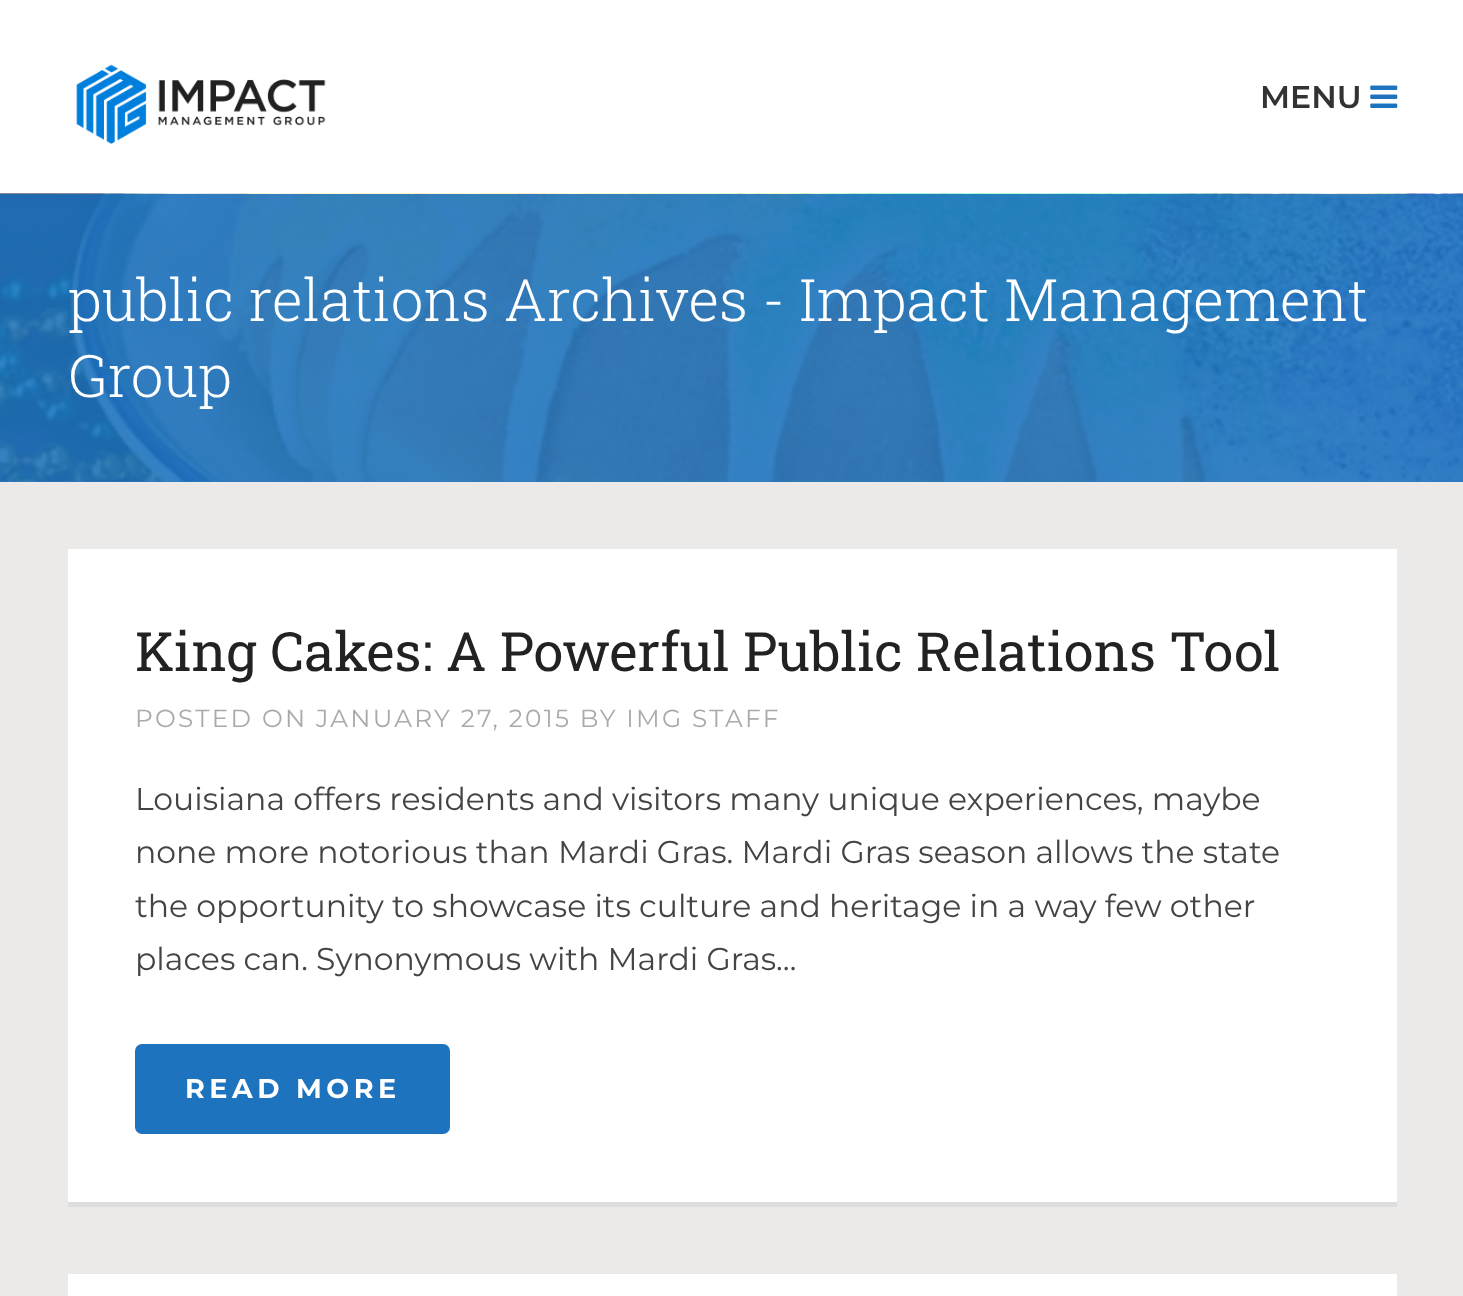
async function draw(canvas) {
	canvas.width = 1463;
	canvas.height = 1296;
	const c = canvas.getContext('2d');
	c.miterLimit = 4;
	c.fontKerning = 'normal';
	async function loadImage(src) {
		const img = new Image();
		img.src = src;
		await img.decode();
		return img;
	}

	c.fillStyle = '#fff';
	c.fillRect(0, 0, 1463, 1296);
	c.drawImage(await loadImage('img1.png'), 76, 64, 250, 80);
	c.font = '600 31.5px Montserrat';
	c.fillStyle = '#333';
	c.fillText('MENU', 1260, 108);
	c.drawImage(await loadImage('img2.png'), 1370, 85, 28, 23);
	c.fillStyle = '#ebeae9';
	c.fillRect(0, 482, 1463, 814);
	c.fillStyle = '#337fc2';
	c.fillRect(0, 481, 1463, 1);
	c.drawImage(await loadImage('img3.png'), 0, 193, 1463, 289);
	c.font = '300 58.5px Roboto Slab';
	c.fillStyle = '#fff';
	c.fillText('public relations Archives - Impact Management', 68, 321);
	c.fillText('Group', 68, 397);
	c.fillRect(68, 549, 1329, 653);
	c.fillStyle = '#ddd';
	c.fillRect(68, 1202, 1329, 5);
	c.font = '54px Roboto Slab';
	c.fillStyle = '#222';
	c.fillText('King Cakes: A Powerful Public Relations Tool', 135, 671);
	c.letterSpacing = '2.25px';
	c.font = '24.75px Montserrat';
	c.fillStyle = '#aaa';
	c.fillText('POSTED ON JANUARY 27, 2015 BY IMG STAFF', 135, 727);
	c.letterSpacing = '0px';
	c.font = '31.5px Montserrat';
	c.fillStyle = '#444';
	for (const [text, x, y] of [
		['Louisiana offers residents and visitors many unique experiences, maybe', 135, 810],
		['none more notorious than Mardi Gras. Mardi Gras season allows the state', 135, 863],
		['the opportunity to showcase its culture and heritage in a way few other', 135, 917],
		['places can. Synonymous with Mardi Gras…', 135, 970],
	]) {
		c.fillText(text, x, y);
	}
	c.fillStyle = '#1e73be';
	c.beginPath();
	c.roundRect(135, 1044, 315, 90, 7);
	c.fill();
	c.letterSpacing = '4.5px';
	c.font = 'bold 27px Montserrat';
	c.fillStyle = '#fff';
	c.fillText('READ MORE', 185, 1098);
	c.fillRect(68, 1274, 1329, 22);
}

draw(document.querySelector('canvas'));
